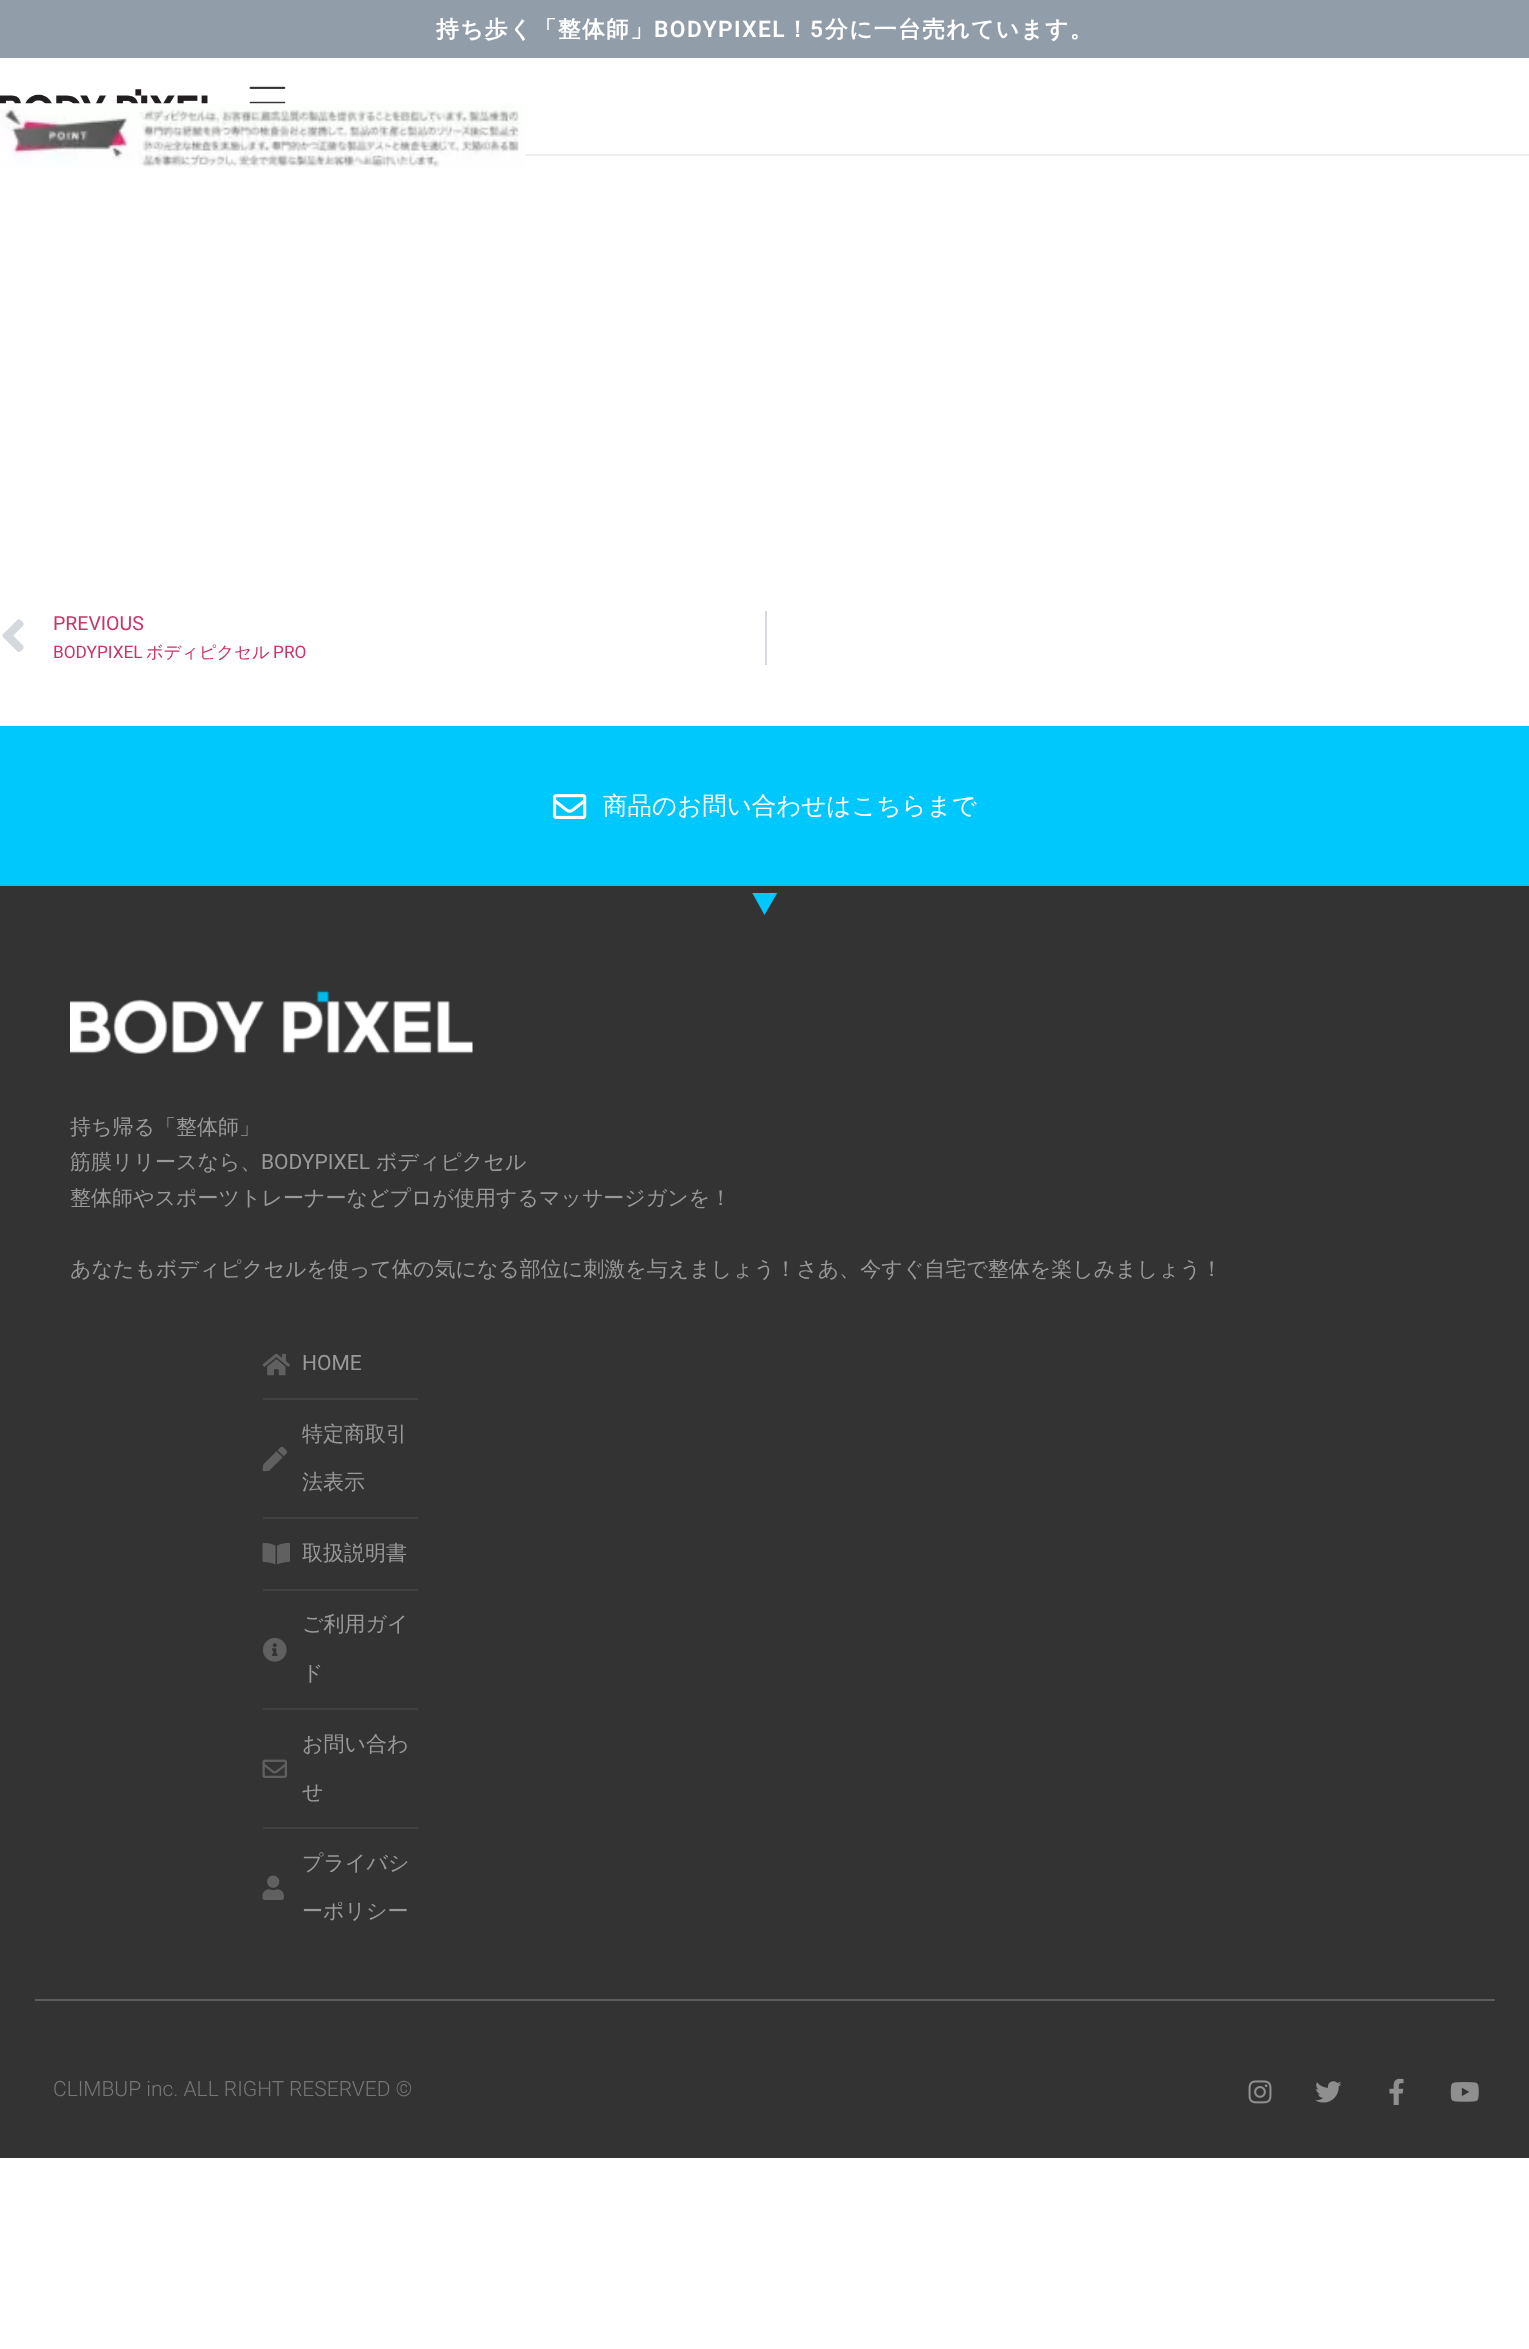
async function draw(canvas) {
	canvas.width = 1529;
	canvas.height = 2349;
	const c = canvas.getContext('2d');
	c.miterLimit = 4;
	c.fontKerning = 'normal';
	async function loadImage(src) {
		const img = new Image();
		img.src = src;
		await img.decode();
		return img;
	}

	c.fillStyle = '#fff';
	c.fillRect(0, 0, 1529, 2349);
	c.fillStyle = '#919da9';
	c.fillRect(0, 0, 1529, 58);
	c.letterSpacing = '1.4px';
	c.font = 'bold 22.75px WenQuanYi Zen Hei';
	c.fillStyle = '#fff';
	c.fillText('持ち歩く「整体師」', 436, 37);
	c.font = '600 22.75px Roboto';
	c.fillText('BODYPIXEL', 654, 37);
	c.font = 'bold 22.75px WenQuanYi Zen Hei';
	c.fillText('！', 786, 37);
	c.font = '600 22.75px Roboto';
	c.fillText('5', 810, 37);
	c.font = 'bold 22.75px WenQuanYi Zen Hei';
	c.fillText('分に一台売れています。', 825, 37);
	c.fillStyle = '#eee';
	c.fillRect(525, 154, 1004, 2);
	c.drawImage(await loadImage('img1.png'), 0, 89, 208, 15);
	c.drawImage(await loadImage('img2.png'), 249, 86, 37, 18);
	c.drawImage(await loadImage('img3.png'), 0, 103, 525, 65);
	c.drawImage(await loadImage('img4.png'), 2, 619, 22, 33);
	c.letterSpacing = '0px';
	c.font = '19.5px Roboto';
	c.fillStyle = '#c36';
	c.fillText('PREVIOUS', 53, 630);
	c.font = '17.25px Roboto';
	c.fillText('BODYPIXEL', 53, 658);
	c.font = '500 17.25px WenQuanYi Zen Hei';
	c.fillText('ボディピクセル', 146, 658);
	c.font = '17.25px Roboto';
	c.fillText('PRO', 273, 658);
	c.fillStyle = '#d5d8dc';
	c.fillRect(765, 611, 2, 54);
	c.fillStyle = '#00c7fc';
	c.fillRect(0, 726, 1529, 160);
	c.drawImage(await loadImage('img5.png'), 553, 794, 34, 25);
	c.font = '500 24.5px WenQuanYi Zen Hei';
	c.fillStyle = '#fff';
	c.fillText('商品のお問い合わせはこちらまで', 603, 814);
	c.fillStyle = '#333';
	c.fillRect(0, 886, 1529, 1272);
	c.save();
	c.beginPath();
	c.rect(326, 893, 878, 22);
	c.clip();
	c.fillStyle = '#00c7fc';
	c.beginPath();
	c.moveTo(764.5, 915);
	c.lineTo(752, 892.5);
	c.lineTo(777.5, 892.5);
	c.closePath();
	c.fill();
	c.restore();
	c.drawImage(await loadImage('img6.png'), 70, 990, 403, 64);
	c.font = '500 21px WenQuanYi Zen Hei';
	c.fillStyle = '#999';
	c.fillText('持ち帰る「整体師」', 70, 1134);
	c.fillText('筋膜リリースなら、', 70, 1169);
	c.font = '21px Roboto';
	c.fillText('BODYPIXEL', 261, 1169);
	c.font = '500 21px WenQuanYi Zen Hei';
	for (const [text, x, y] of [
		['ボディピクセル', 376, 1169],
		['整体師やスポーツトレーナーなどプロが使用するマッサージガンを！', 70, 1205],
		['あなたもボディピクセルを使って体の気になる部位に刺激を与えましょう！さあ、今すぐ自宅で整体を楽しみましょう！', 70, 1276],
	]) {
		c.fillText(text, x, y);
	}
	c.drawImage(await loadImage('img7.png'), 262, 1353, 28, 23);
	c.font = '21px Roboto';
	c.fillText('HOME', 302, 1370);
	c.fillStyle = '#414141';
	c.fillRect(263, 1398, 155, 2);
	c.drawImage(await loadImage('img8.png'), 262, 1446, 25, 26);
	c.font = '500 21px WenQuanYi Zen Hei';
	c.fillStyle = '#999';
	c.fillText('特定商取引', 302, 1441);
	c.fillText('法表示', 302, 1489);
	c.fillStyle = '#414141';
	c.fillRect(263, 1517, 155, 2);
	c.drawImage(await loadImage('img9.png'), 262, 1542, 28, 23);
	c.fillStyle = '#999';
	c.fillText('取扱説明書', 302, 1560);
	c.fillStyle = '#414141';
	c.fillRect(263, 1589, 155, 2);
	c.drawImage(await loadImage('img10.png'), 263, 1638, 24, 24);
	c.fillStyle = '#999';
	c.fillText('ご利用ガイ', 302, 1631);
	c.fillText('ド', 302, 1680);
	c.fillStyle = '#414141';
	c.fillRect(263, 1708, 155, 2);
	c.drawImage(await loadImage('img11.png'), 262, 1759, 25, 19);
	c.fillStyle = '#999';
	c.fillText('お問い合わ', 302, 1751);
	c.fillText('せ', 302, 1799);
	c.fillStyle = '#414141';
	c.fillRect(263, 1827, 155, 2);
	c.drawImage(await loadImage('img12.png'), 262, 1875, 22, 25);
	c.fillStyle = '#999';
	c.fillText('プライバシ', 302, 1870);
	c.fillText('ーポリシー', 302, 1918);
	c.fillStyle = '#5e5e5e';
	c.fillRect(35, 1999, 1460, 2);
	c.font = '300 21px Roboto';
	c.fillStyle = '#777';
	c.fillText('CLIMBUP inc. ALL RIGHT RESERVED ©', 53, 2096);
	c.drawImage(await loadImage('img13.png'), 1248, 2080, 24, 24);
	c.drawImage(await loadImage('img14.png'), 1315, 2081, 26, 22);
	c.drawImage(await loadImage('img15.png'), 1389, 2078, 15, 27);
	c.drawImage(await loadImage('img16.png'), 1450, 2082, 29, 20);
}

draw(document.querySelector('canvas'));
